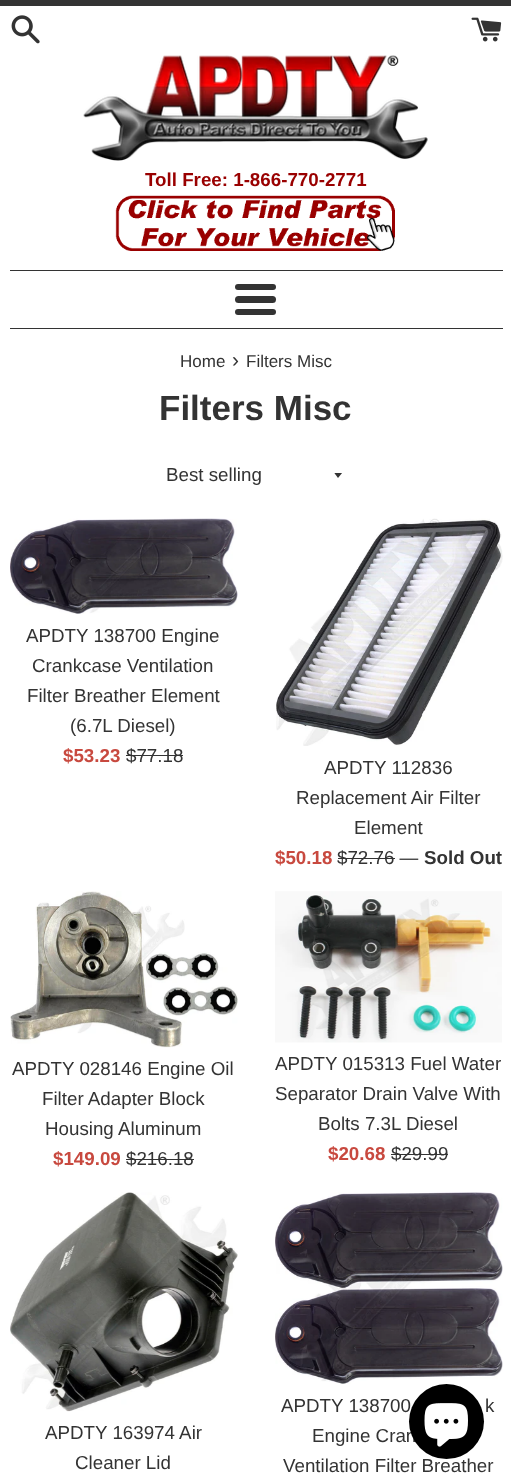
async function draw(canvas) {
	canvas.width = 511;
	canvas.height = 1484;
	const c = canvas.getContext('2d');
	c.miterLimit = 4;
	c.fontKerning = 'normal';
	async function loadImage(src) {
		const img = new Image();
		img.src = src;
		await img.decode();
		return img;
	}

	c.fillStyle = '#fff';
	c.fillRect(0, 0, 511, 1484);
	c.fillStyle = '#333';
	c.fillRect(0, 0, 511, 6);
	c.drawImage(await loadImage('img1.png'), 11, 15, 29, 29);
	c.drawImage(await loadImage('img2.png'), 471, 17, 31, 25);
	c.drawImage(await loadImage('img3.png'), 83, 55, 345, 106);
	c.font = 'bold 18.75px Liberation Sans';
	c.fillStyle = '#900';
	c.fillText('Toll Free: 1-866-770-2771', 145, 186);
	c.drawImage(await loadImage('img4.png'), 115, 195, 280, 56);
	c.fillStyle = '#333';
	c.fillRect(10, 270, 493, 1);
	c.beginPath();
	c.roundRect(235, 284, 41, 6, 3);
	c.fill();
	c.beginPath();
	c.roundRect(235, 296, 41, 7, 3.5);
	c.fill();
	c.beginPath();
	c.roundRect(235, 309, 41, 6, 3);
	c.fill();
	c.fillRect(10, 328, 493, 1);
	c.font = '17px Liberation Sans';
	c.fillText('Home', 180, 367);
	c.font = '21px Liberation Sans';
	c.fillText('›', 232, 367);
	c.font = '17px Liberation Sans';
	c.fillText('Filters Misc', 246, 367);
	c.font = 'bold 35px Liberation Sans';
	c.fillText('Filters Misc', 159, 420);
	c.save();
	c.beginPath();
	c.rect(334, 473, 10, 6);
	c.clip();
	c.beginPath();
	c.moveTo(334, 472.5);
	c.lineTo(338, 478);
	c.lineTo(342.5, 472.5);
	c.closePath();
	c.fill();
	c.restore();
	c.font = '18.75px Liberation Sans';
	c.fillText('Best selling', 166, 481);
	c.drawImage(await loadImage('img5.png'), 10, 518, 228, 96);
	for (const [text, x, y] of [
		['APDTY 138700 Engine', 26, 642],
		['Crankcase Ventilation', 32, 672],
		['Filter Breather Element', 27, 702],
		['(6.7L Diesel)', 70, 732],
	]) {
		c.fillText(text, x, y);
	}
	c.font = 'bold 18.75px Liberation Sans';
	c.fillStyle = '#c8493f';
	c.fillText('$53.23', 63, 762);
	c.font = '18.75px Liberation Sans';
	c.fillStyle = '#333';
	c.fillText('$77.18', 126, 762);
	c.fillRect(126, 755, 57, 1);
	c.drawImage(await loadImage('img6.png'), 276, 518, 227, 228);
	for (const [text, x, y] of [
		['APDTY 112836', 324, 774],
		['Replacement Air Filter', 296, 804],
		['Element', 354, 834],
	]) {
		c.fillText(text, x, y);
	}
	c.font = 'bold 18.75px Liberation Sans';
	c.fillStyle = '#c8493f';
	c.fillText('$50.18', 275, 864);
	c.font = '18.75px Liberation Sans';
	c.fillStyle = '#333';
	c.fillText('$72.76 —', 337, 864);
	c.fillRect(338, 858, 57, 1);
	c.font = 'bold 18.75px Liberation Sans';
	c.fillText('Sold Out', 424, 864);
	c.drawImage(await loadImage('img7.png'), 10, 891, 228, 157);
	c.font = '18.75px Liberation Sans';
	for (const [text, x, y] of [
		['APDTY 028146 Engine Oil', 12, 1075],
		['Filter Adapter Block', 42, 1105],
		['Housing Aluminum', 45, 1135],
	]) {
		c.fillText(text, x, y);
	}
	c.font = 'bold 18.75px Liberation Sans';
	c.fillStyle = '#c8493f';
	c.fillText('$149.09', 53, 1165);
	c.font = '18.75px Liberation Sans';
	c.fillStyle = '#333';
	c.fillText('$216.18', 126, 1165);
	c.fillRect(126, 1159, 68, 1);
	c.drawImage(await loadImage('img8.png'), 275, 891, 227, 152);
	for (const [text, x, y] of [
		['APDTY 015313 Fuel Water', 275, 1070],
		['Separator Drain Valve With', 275, 1100],
		['Bolts 7.3L Diesel', 318, 1130],
	]) {
		c.fillText(text, x, y);
	}
	c.font = 'bold 18.75px Liberation Sans';
	c.fillStyle = '#c8493f';
	c.fillText('$20.68', 328, 1160);
	c.font = '18.75px Liberation Sans';
	c.fillStyle = '#333';
	c.fillText('$29.99', 391, 1160);
	c.fillRect(391, 1154, 57, 1);
	c.drawImage(await loadImage('img9.png'), 10, 1192, 228, 220);
	c.fillText('APDTY 163974 Air', 45, 1439);
	c.fillText('Cleaner Lid', 75, 1469);
	c.drawImage(await loadImage('img10.png'), 275, 1192, 228, 192);
	for (const [text, x, y] of [
		['APDTY 138700', 281, 1412],
		['k', 485, 1412],
		['Engine Cran', 312, 1442],
		['Ventilation Filter Breather', 283, 1472],
	]) {
		c.fillText(text, x, y);
	}
	c.fillStyle = '#000';
	c.beginPath();
	c.arc(446.5, 1421.5, 37.5, 0, 2 * Math.PI);
	c.fill();
	c.drawImage(await loadImage('img11.png'), 424, 1403, 44, 44);
}

draw(document.querySelector('canvas'));
